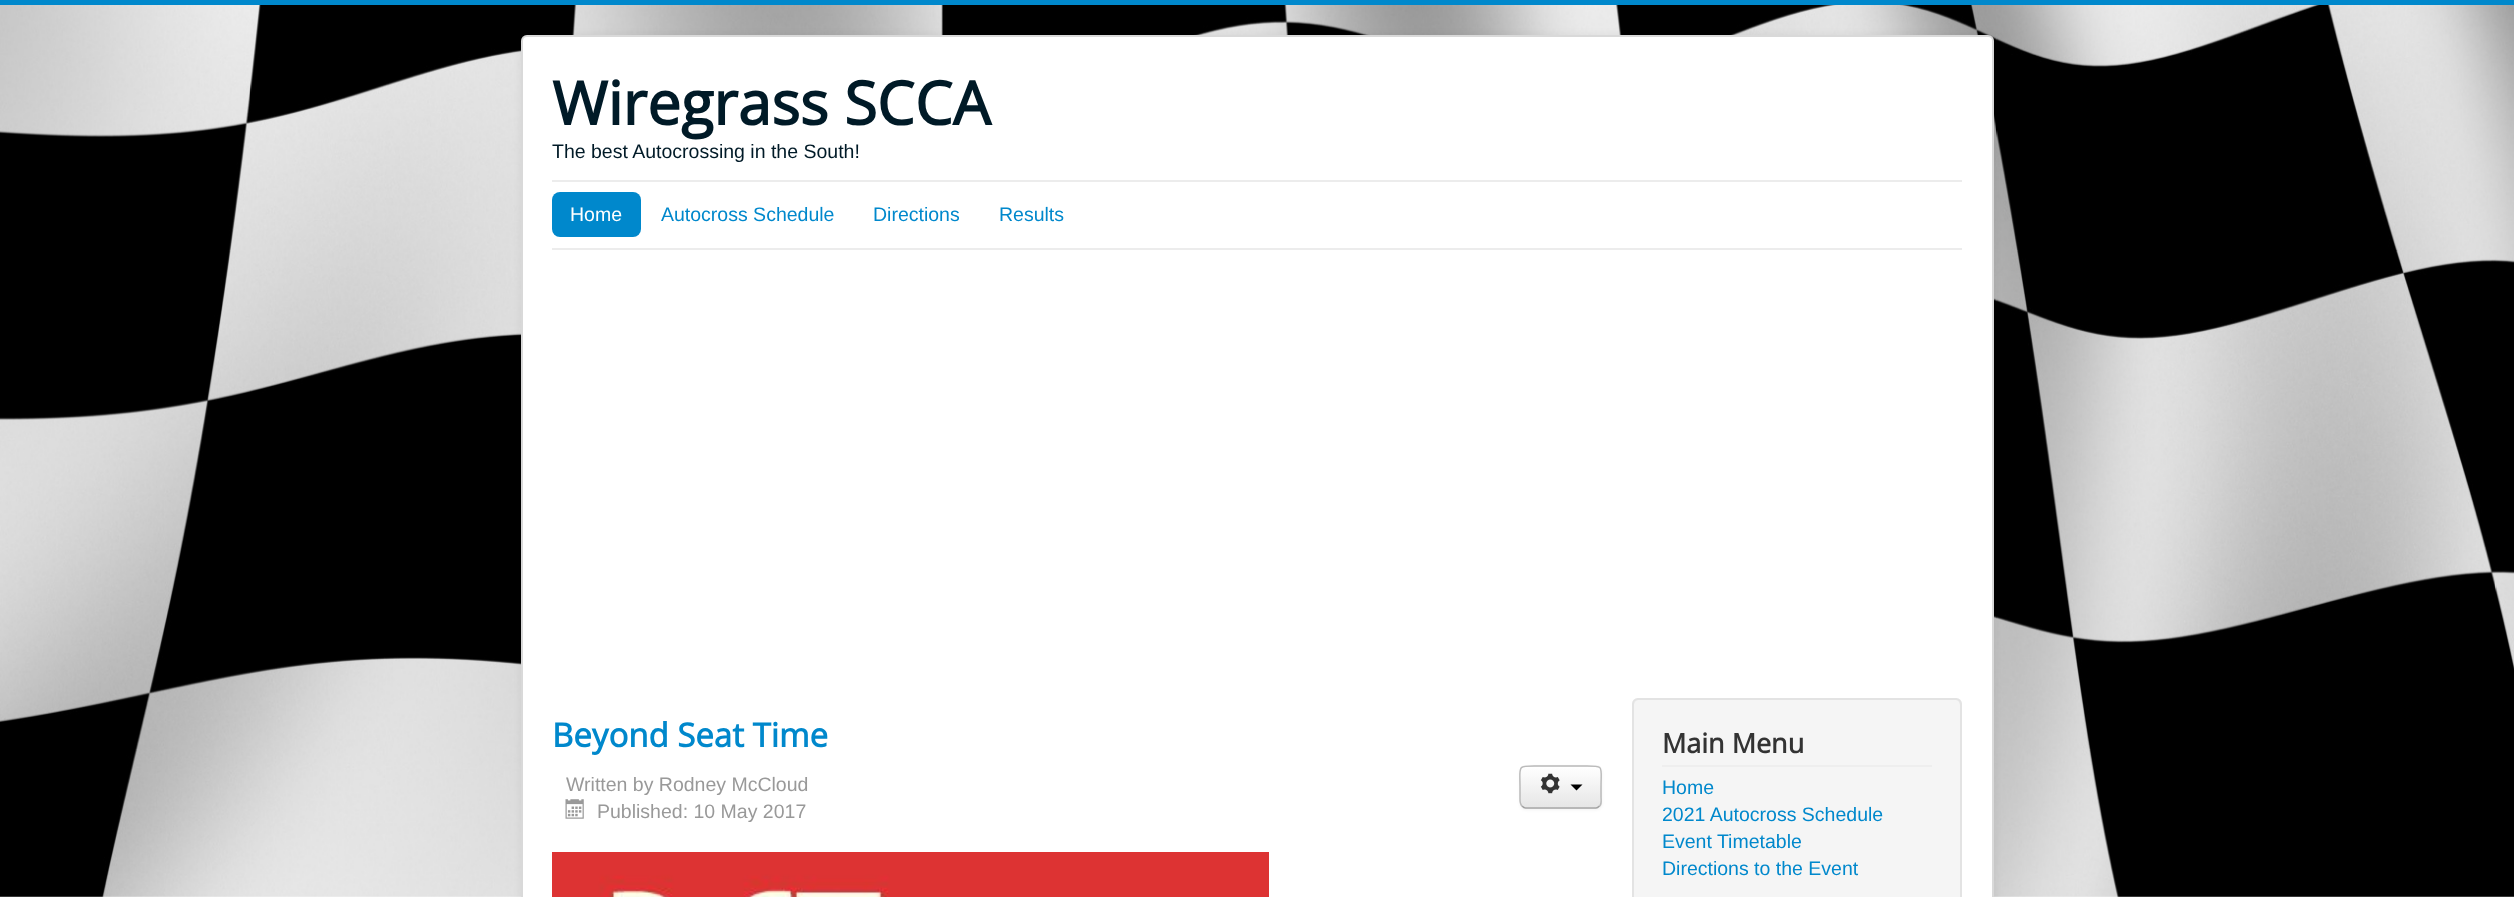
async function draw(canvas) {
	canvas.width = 2514;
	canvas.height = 897;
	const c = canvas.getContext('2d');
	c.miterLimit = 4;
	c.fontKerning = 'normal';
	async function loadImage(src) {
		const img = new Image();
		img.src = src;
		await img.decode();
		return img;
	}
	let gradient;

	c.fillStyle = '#fff';
	c.fillRect(0, 0, 2514, 897);
	c.drawImage(await loadImage('img1.png'), 0, 5, 2514, 892);
	c.fillStyle = '#08c';
	c.fillRect(0, 0, 2514, 5);
	c.fillStyle = '#0000000d';
	c.filter = 'blur(4.5px)';
	c.beginPath();
	c.roundRect(521, 35, 1473, 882, 6);
	c.fill();
	c.filter = 'none';
	c.fillStyle = '#fff';
	c.beginPath();
	c.roundRect(521, 35, 1473, 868, 6);
	c.fill();
	c.beginPath();
	c.roundRect(522, 36, 1471, 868, 5);
	c.strokeStyle = '#00000026';
	c.lineWidth = 2;
	c.stroke();
	c.font = 'bold 60px Open Sans';
	c.fillStyle = '#001a27';
	c.fillText('Wiregrass SCCA', 552, 125);
	c.font = '19.5px Liberation Sans';
	c.fillText('The best Autocrossing in the South!', 552, 158);
	c.fillStyle = '#ececec';
	c.fillRect(552, 180, 1410, 2);
	c.fillRect(552, 248, 1410, 2);
	c.fillStyle = '#08c';
	c.beginPath();
	c.roundRect(552, 192, 89, 45, 8);
	c.fill();
	c.fillStyle = '#fff';
	c.fillText('Home', 570, 221);
	c.fillStyle = '#08c';
	for (const [text, x, y] of [
		['Autocross Schedule', 661, 221],
		['Directions', 873, 221],
		['Results', 999, 221],
	]) {
		c.fillText(text, x, y);
	}
	c.font = 'bold 33px Open Sans';
	c.fillText('Beyond Seat Time', 552, 747);
	c.font = '19.5px Liberation Sans';
	c.fillStyle = '#999';
	c.fillText('Written by Rodney McCloud', 566, 791);
	c.drawImage(await loadImage('img2.png'), 565, 799, 19, 20);
	c.fillText('Published: 10 May 2017', 597, 818);
	c.fillStyle = '#0000000d';
	c.filter = 'blur(1.5px)';
	c.beginPath();
	c.roundRect(1520, 767, 82, 43, 6);
	c.fill();
	c.filter = 'none';
	c.fillStyle = '#f5f5f5';
	c.beginPath();
	c.roundRect(1520, 765, 82, 44, 6);
	c.fill();
	c.save();
	c.beginPath();
	c.roundRect(1520, 765, 82, 44, 6);
	c.clip();
	gradient = c.createLinearGradient(1561, 767, 1561, 807);
	gradient.addColorStop(0, '#fff');
	gradient.addColorStop(1, '#e6e6e6');
	c.fillStyle = gradient;
	c.fillRect(1520, 767, 82, 40);
	c.restore();
	c.fillStyle = '#ffffff33';
	c.beginPath();
	c.moveTo(1526, 768);
	c.lineTo(1596, 768);
	c.bezierCurveTo(1602, 768, 1600, 780, 1600, 783);
	c.lineTo(1600, 805);
	c.bezierCurveTo(1601, 804, 1601, 803, 1601, 802);
	c.lineTo(1601, 772);
	c.bezierCurveTo(1601, 769, 1599, 767, 1596, 767);
	c.lineTo(1526, 767);
	c.bezierCurveTo(1523, 767, 1521, 769, 1521, 772);
	c.bezierCurveTo(1521, 770, 1523, 768, 1526, 768);
	c.closePath();
	c.fill();
	c.beginPath();
	c.moveTo(1599.5, 806);
	c.bezierCurveTo(1598.5, 807, 1597.5, 808, 1596, 808);
	c.lineTo(1525.5, 808);
	c.bezierCurveTo(1524, 808, 1523, 807, 1522, 806);
	c.strokeStyle = '#a2a2a2';
	c.lineWidth = 1.5;
	c.stroke();
	c.beginPath();
	c.moveTo(1522, 806);
	c.bezierCurveTo(1519.5, 804, 1520, 800, 1520, 797);
	c.lineTo(1520, 787);
	c.bezierCurveTo(1520, 765, 1516.5, 766, 1537, 766);
	c.lineTo(1584, 766);
	c.bezierCurveTo(1605, 766, 1601, 765, 1601, 787);
	c.lineTo(1601, 797);
	c.bezierCurveTo(1601, 800, 1602, 804, 1599.5, 806);
	c.strokeStyle = '#bbb';
	c.stroke();
	c.drawImage(await loadImage('img3.png'), 1540, 773, 20, 21);
	c.fillStyle = '#000';
	c.beginPath();
	c.moveTo(1570.5, 784.5);
	c.lineTo(1582.5, 784.5);
	c.lineTo(1576.5, 790.5);
	c.closePath();
	c.fill();
	c.drawImage(await loadImage('img4.png'), 552, 852, 717, 45);
	c.fillStyle = '#f5f5f5';
	c.beginPath();
	c.roundRect(1632, 698, 330, 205, 6);
	c.fill();
	c.fillStyle = '#e9e9e9';
	c.beginPath();
	c.moveTo(1638, 700);
	c.lineTo(1956, 700);
	c.bezierCurveTo(1958, 700, 1960, 703, 1960, 705);
	c.lineTo(1960, 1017);
	c.bezierCurveTo(1961, 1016, 1961, 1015, 1961, 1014);
	c.lineTo(1961, 704);
	c.bezierCurveTo(1961, 701, 1959, 699, 1956, 699);
	c.lineTo(1639, 699);
	c.bezierCurveTo(1636, 699, 1634, 701, 1634, 704);
	c.lineTo(1634, 705);
	c.bezierCurveTo(1634, 703, 1636, 700, 1638, 700);
	c.closePath();
	c.fill();
	c.beginPath();
	c.roundRect(1633, 699, 328, 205, 5);
	c.strokeStyle = '#e3e3e3';
	c.lineWidth = 2;
	c.stroke();
	c.fillStyle = '#eee';
	c.fillRect(1662, 765, 270, 2);
	c.font = 'bold 27px Open Sans';
	c.fillStyle = '#333';
	c.fillText('Main Menu', 1662, 753);
	c.font = '19.5px Liberation Sans';
	c.fillStyle = '#08c';
	for (const [text, x, y] of [
		['Home', 1662, 794],
		['2021 Autocross Schedule', 1662, 821],
		['Event Timetable', 1662, 848],
		['Directions to the Event', 1662, 875],
	]) {
		c.fillText(text, x, y);
	}
}

draw(document.querySelector('canvas'));
